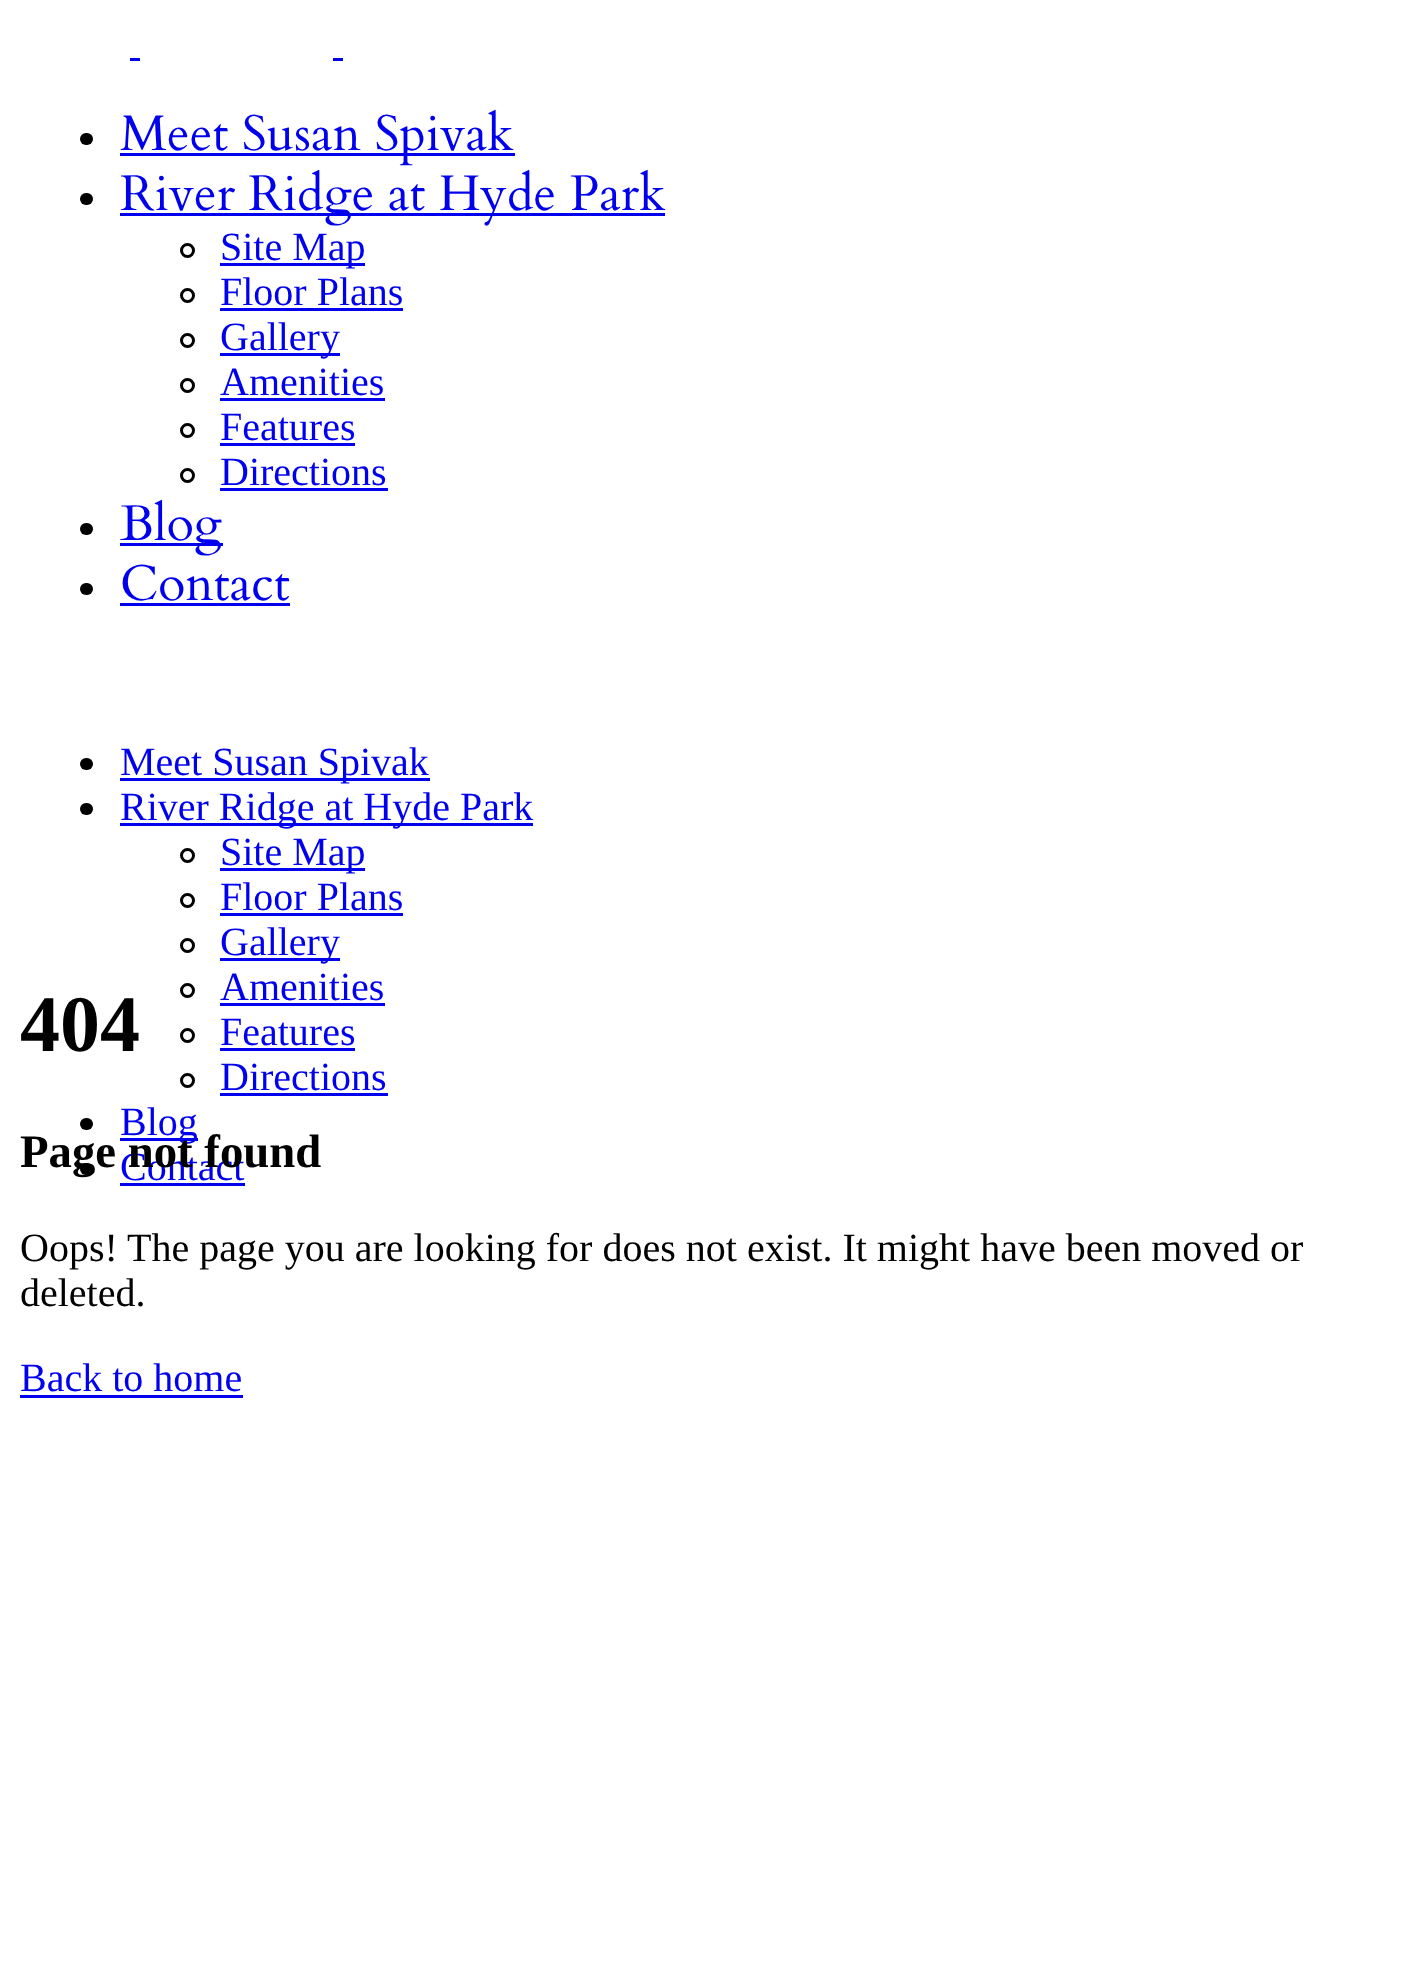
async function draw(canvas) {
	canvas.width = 1419;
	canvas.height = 1966;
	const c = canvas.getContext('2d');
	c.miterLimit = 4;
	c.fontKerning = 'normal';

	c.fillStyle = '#fff';
	c.fillRect(0, 0, 1419, 1966);
	c.fillStyle = '#00e';
	c.fillRect(130, 58, 10, 3);
	c.fillRect(333, 58, 10, 3);
	c.fillStyle = '#000';
	c.beginPath();
	c.roundRect(80, 133, 13, 12, 6);
	c.fill();
	c.fillStyle = '#00e';
	c.fillRect(120, 153, 395, 3);
	c.font = '50px Cardo';
	c.fillText('Meet Susan Spivak', 120, 150);
	c.fillStyle = '#000';
	c.beginPath();
	c.roundRect(80, 193, 13, 12, 6);
	c.fill();
	c.fillStyle = '#00e';
	c.fillRect(120, 213, 545, 3);
	c.fillText('River Ridge at Hyde Park', 120, 210);
	c.beginPath();
	c.arc(187.5, 250.5, 6, 0, 2 * Math.PI);
	c.strokeStyle = '#000';
	c.lineWidth = 3;
	c.stroke();
	c.fillRect(220, 263, 145, 3);
	c.font = '40px Liberation Serif';
	c.fillText('Site Map', 220, 260);
	c.beginPath();
	c.arc(187.5, 295.5, 6, 0, 2 * Math.PI);
	c.stroke();
	c.fillText('Floor Plans', 220, 305);
	c.fillRect(220, 308, 183, 3);
	c.beginPath();
	c.arc(187.5, 340.5, 6, 0, 2 * Math.PI);
	c.stroke();
	c.fillRect(220, 353, 120, 3);
	c.fillText('Gallery', 220, 350);
	c.beginPath();
	c.arc(187.5, 385.5, 6, 0, 2 * Math.PI);
	c.stroke();
	c.fillText('Amenities', 220, 395);
	c.fillRect(220, 398, 165, 3);
	c.beginPath();
	c.arc(187.5, 430.5, 6, 0, 2 * Math.PI);
	c.stroke();
	c.fillText('Features', 220, 440);
	c.fillRect(220, 443, 135, 3);
	c.beginPath();
	c.arc(187.5, 475.5, 6, 0, 2 * Math.PI);
	c.stroke();
	c.fillText('Directions', 220, 485);
	c.fillRect(220, 488, 168, 3);
	c.fillStyle = '#000';
	c.beginPath();
	c.roundRect(80, 523, 13, 12, 6);
	c.fill();
	c.fillStyle = '#00e';
	c.fillRect(120, 543, 103, 3);
	c.font = '50px Cardo';
	c.fillText('Blog', 120, 540);
	c.fillStyle = '#000';
	c.beginPath();
	c.roundRect(80, 583, 13, 12, 6);
	c.fill();
	c.fillStyle = '#00e';
	c.fillText('Contact', 120, 600);
	c.fillRect(120, 603, 170, 3);
	c.fillStyle = '#000';
	c.beginPath();
	c.roundRect(80, 758, 13, 12, 6);
	c.fill();
	c.fillStyle = '#00e';
	c.fillRect(120, 778, 310, 3);
	c.font = '40px Liberation Serif';
	c.fillText('Meet Susan Spivak', 120, 775);
	c.fillStyle = '#000';
	c.beginPath();
	c.roundRect(80, 803, 13, 12, 6);
	c.fill();
	c.fillStyle = '#00e';
	c.fillRect(120, 823, 413, 3);
	c.fillText('River Ridge at Hyde Park', 120, 820);
	c.beginPath();
	c.arc(187.5, 855.5, 6, 0, 2 * Math.PI);
	c.stroke();
	c.fillRect(220, 868, 145, 3);
	c.fillText('Site Map', 220, 865);
	c.beginPath();
	c.arc(187.5, 900.5, 6, 0, 2 * Math.PI);
	c.stroke();
	c.fillText('Floor Plans', 220, 910);
	c.fillRect(220, 913, 183, 3);
	c.beginPath();
	c.arc(187.5, 945.5, 6, 0, 2 * Math.PI);
	c.stroke();
	c.fillRect(220, 958, 120, 3);
	c.fillText('Gallery', 220, 955);
	c.beginPath();
	c.arc(187.5, 990.5, 6, 0, 2 * Math.PI);
	c.stroke();
	c.fillText('Amenities', 220, 1000);
	c.fillRect(220, 1003, 165, 3);
	c.beginPath();
	c.arc(187.5, 1035.5, 6, 0, 2 * Math.PI);
	c.stroke();
	c.fillText('Features', 220, 1045);
	c.fillRect(220, 1048, 135, 3);
	c.beginPath();
	c.arc(187.5, 1080.5, 6, 0, 2 * Math.PI);
	c.stroke();
	c.fillText('Directions', 220, 1090);
	c.fillRect(220, 1093, 168, 3);
	c.fillStyle = '#000';
	c.beginPath();
	c.roundRect(80, 1118, 13, 12, 6);
	c.fill();
	c.fillStyle = '#00e';
	c.fillRect(120, 1138, 78, 3);
	c.fillText('Blog', 120, 1135);
	c.fillStyle = '#000';
	c.beginPath();
	c.roundRect(80, 1163, 13, 12, 6);
	c.fill();
	c.fillStyle = '#00e';
	c.fillText('Contact', 120, 1180);
	c.fillRect(120, 1183, 125, 3);
	c.font = 'bold 80px Liberation Serif';
	c.fillStyle = '#000';
	c.fillText('404', 20, 1051);
	c.font = 'bold 46.75px Liberation Serif';
	c.fillText('Page not found', 20, 1167);
	c.font = '40px Liberation Serif';
	c.fillText('Oops! The page you are looking for does not exist. It might have been moved or', 20, 1261);
	c.fillText('deleted.', 20, 1306);
	c.fillStyle = '#00e';
	c.fillText('Back to home', 20, 1391);
	c.fillRect(20, 1395, 223, 3);
}

draw(document.querySelector('canvas'));
